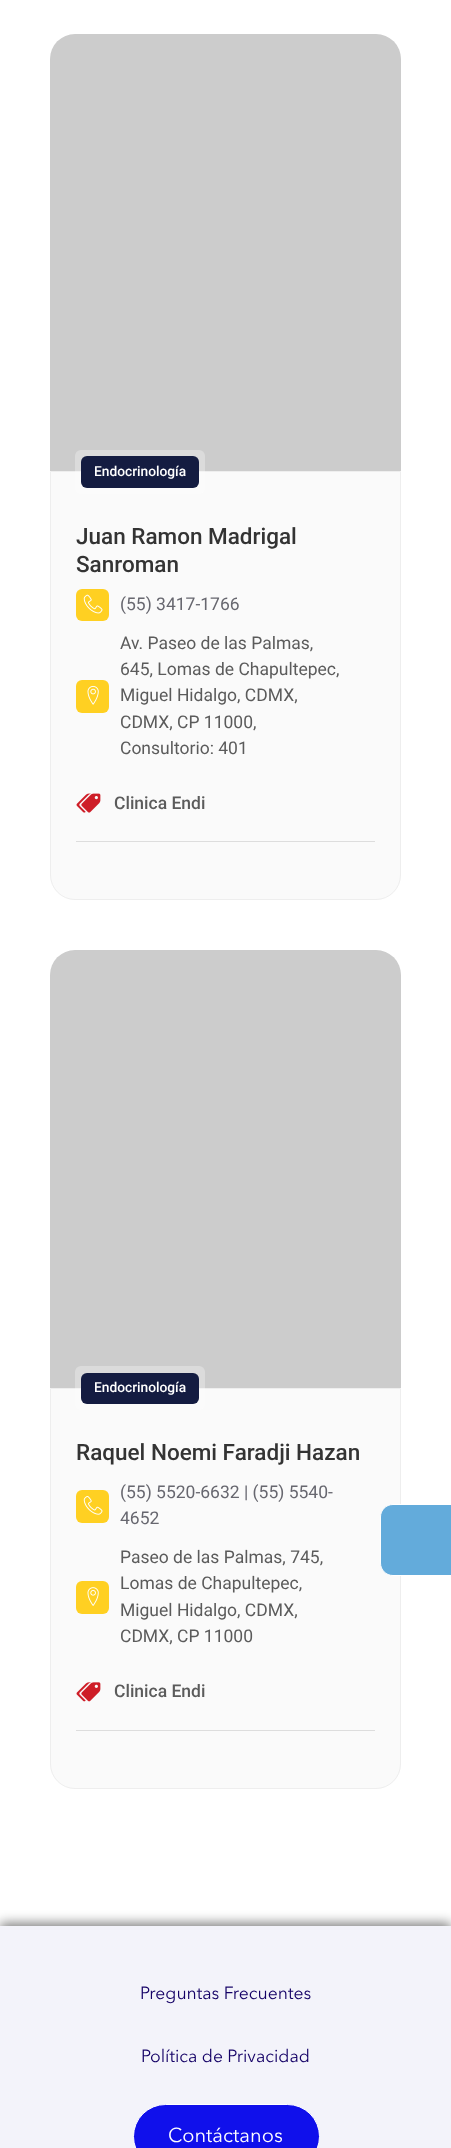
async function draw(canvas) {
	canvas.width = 451;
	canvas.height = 2148;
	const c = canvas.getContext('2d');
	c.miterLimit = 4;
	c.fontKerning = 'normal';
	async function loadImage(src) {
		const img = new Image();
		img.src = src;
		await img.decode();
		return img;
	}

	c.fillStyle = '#fff';
	c.fillRect(0, 0, 451, 2148);
	c.fillStyle = '#ccc';
	c.beginPath();
	c.roundRect(50, 34, 351, 437, [25, 25, 0, 0]);
	c.fill();
	c.fillStyle = '#fafafa';
	c.beginPath();
	c.roundRect(50.5, 471.5, 350, 428, [0, 0, 24.5, 24.5]);
	c.fill();
	c.strokeStyle = '#eee';
	c.stroke();
	c.fillStyle = '#ffffff4d';
	c.beginPath();
	c.roundRect(75, 450, 130, 44, 6);
	c.fill();
	c.fillStyle = '#141c41';
	c.beginPath();
	c.roundRect(81, 456, 118, 32, 6);
	c.fill();
	c.font = '500 13.75px Roboto';
	c.fillStyle = '#fff';
	c.fillText('Endocrinología', 94, 476);
	c.font = '500 22.5px Roboto';
	c.fillStyle = '#333';
	c.fillText('Juan Ramon Madrigal', 76, 544);
	c.fillText('Sanroman', 76, 572);
	c.fillStyle = '#ffd022';
	c.beginPath();
	c.roundRect(76, 589, 33, 32, 6);
	c.fill();
	c.drawImage(await loadImage('img1.png'), 83, 594, 20, 20);
	c.font = '17.5px Roboto';
	c.fillStyle = '#67676f';
	c.fillText('(55) 3417-1766', 120, 610);
	c.fillStyle = '#5b5b5b';
	c.fillText('Av. Paseo de las Palmas,', 120, 649);
	c.fillText('645, Lomas de Chapultepec,', 120, 675);
	c.fillStyle = '#ffd022';
	c.beginPath();
	c.roundRect(76, 680, 33, 33, 6);
	c.fill();
	c.drawImage(await loadImage('img2.png'), 87, 685, 12, 20);
	c.fillStyle = '#5b5b5b';
	for (const [text, x, y] of [
		['Miguel Hidalgo, CDMX,', 120, 701],
		['CDMX, CP 11000,', 120, 728],
		['Consultorio: 401', 120, 754],
	]) {
		c.fillText(text, x, y);
	}
	c.drawImage(await loadImage('img3.png'), 76, 793, 25, 20);
	c.font = '500 17.5px Roboto';
	c.fillText('Clinica Endi', 114, 809);
	c.fillStyle = '#ddd';
	c.fillRect(76, 841, 299, 1);
	c.fillStyle = '#ccc';
	c.beginPath();
	c.roundRect(50, 950, 351, 438, [25, 25, 0, 0]);
	c.fill();
	c.fillStyle = '#fafafa';
	c.beginPath();
	c.roundRect(50.5, 1388.5, 350, 400, [0, 0, 24.5, 24.5]);
	c.fill();
	c.stroke();
	c.fillStyle = '#ffffff4d';
	c.beginPath();
	c.roundRect(75, 1366, 130, 44, 6);
	c.fill();
	c.fillStyle = '#141c41';
	c.beginPath();
	c.roundRect(81, 1373, 118, 31, 6);
	c.fill();
	c.font = '500 13.75px Roboto';
	c.fillStyle = '#fff';
	c.fillText('Endocrinología', 94, 1392);
	c.font = '500 22.5px Roboto';
	c.fillStyle = '#333';
	c.fillText('Raquel Noemi Faradji Hazan', 76, 1460);
	c.fillStyle = '#ffd022';
	c.beginPath();
	c.roundRect(76, 1490, 33, 33, 6);
	c.fill();
	c.drawImage(await loadImage('img4.png'), 83, 1496, 20, 19);
	c.font = '17.5px Roboto';
	c.fillStyle = '#67676f';
	c.fillText('(55) 5520-6632 | (55) 5540-', 120, 1498);
	c.fillText('4652', 120, 1524);
	c.fillStyle = '#5b5b5b';
	c.fillText('Paseo de las Palmas, 745,', 120, 1563);
	c.fillStyle = '#ffd022';
	c.beginPath();
	c.roundRect(76, 1581, 33, 33, 6);
	c.fill();
	c.drawImage(await loadImage('img5.png'), 87, 1587, 12, 19);
	c.fillStyle = '#5b5b5b';
	for (const [text, x, y] of [
		['Lomas de Chapultepec,', 120, 1589],
		['Miguel Hidalgo, CDMX,', 120, 1616],
		['CDMX, CP 11000', 120, 1642],
	]) {
		c.fillText(text, x, y);
	}
	c.drawImage(await loadImage('img6.png'), 76, 1682, 25, 20);
	c.font = '500 17.5px Roboto';
	c.fillText('Clinica Endi', 114, 1697);
	c.fillStyle = '#ddd';
	c.fillRect(76, 1730, 299, 1);
	c.fillStyle = '#63abdb';
	c.beginPath();
	c.moveTo(393, 1504.5);
	c.lineTo(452.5, 1504.5);
	c.lineTo(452.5, 1575.5);
	c.lineTo(393, 1575.5);
	c.bezierCurveTo(386, 1575.5, 380.5, 1570, 380.5, 1563);
	c.lineTo(380.5, 1517);
	c.bezierCurveTo(380.5, 1510, 386, 1504.5, 393, 1504.5);
	c.closePath();
	c.fill();
	c.strokeStyle = '#fff';
	c.stroke();
	c.fillStyle = '#00000080';
	c.filter = 'blur(6px)';
	c.beginPath();
	c.rect(0, 1923, 451, 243);
	c.fill();
	c.filter = 'none';
	c.fillStyle = '#f3f3fa';
	c.fillRect(0, 1926, 451, 222);
	c.font = '17.5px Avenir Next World';
	c.fillStyle = '#140066';
	c.fillText('Preguntas Frecuentes', 140, 1999);
	c.fillText('Política de Privacidad', 141, 2062);
	c.fillStyle = '#1010eb';
	c.beginPath();
	c.roundRect(133.5, 2104.5, 186, 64, 32);
	c.fill();
	c.stroke();
	c.font = '20px Avenir Next World';
	c.fillStyle = '#fff';
	c.fillText('Contáctanos', 168, 2142);
}

draw(document.querySelector('canvas'));
